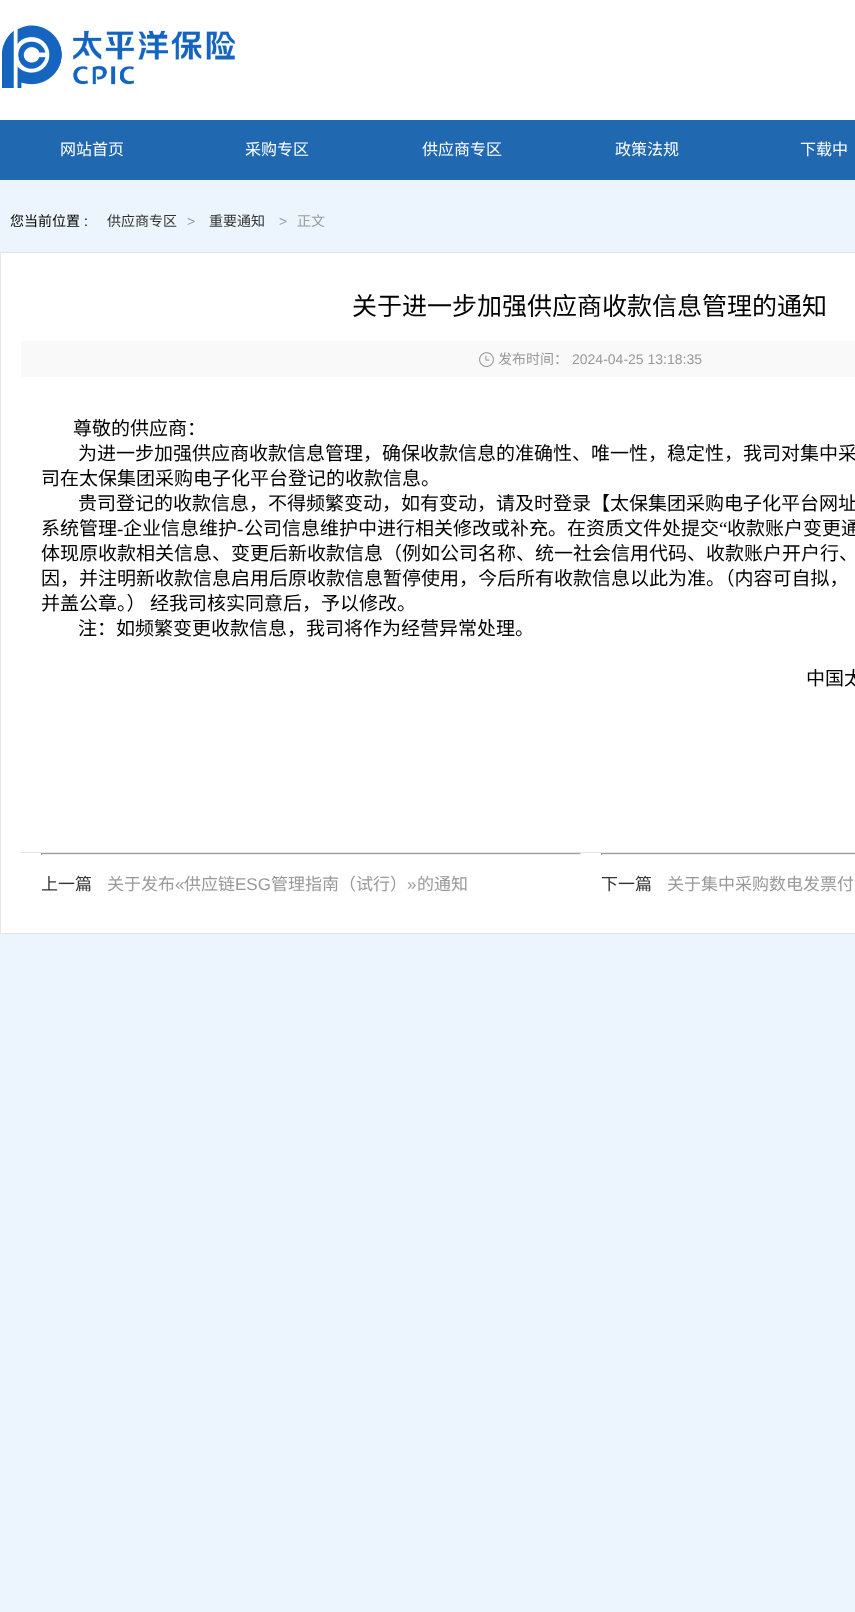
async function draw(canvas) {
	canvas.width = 855;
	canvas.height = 1612;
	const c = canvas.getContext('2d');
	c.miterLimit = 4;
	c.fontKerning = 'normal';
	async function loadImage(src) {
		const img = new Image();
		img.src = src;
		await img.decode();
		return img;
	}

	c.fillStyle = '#ecf5fd';
	c.fillRect(0, 0, 855, 1612);
	c.fillStyle = '#fff';
	c.fillRect(0, 0, 855, 120);
	c.drawImage(await loadImage('img1.png'), 2, 25, 233, 63);
	c.fillStyle = '#2068b0';
	c.fillRect(0, 120, 855, 60);
	c.font = '16px Noto Sans CJK SC';
	c.fillStyle = '#fff';
	for (const [text, x, y] of [
		['网站首页', 60, 155],
		['采购专区', 245, 155],
		['供应商专区', 422, 155],
		['政策法规', 615, 155],
		['下载中', 800, 155],
	]) {
		c.fillText(text, x, y);
	}
	c.font = '14px Noto Sans CJK SC';
	c.fillStyle = '#000';
	c.fillText('您当前位置', 10, 226);
	c.font = '14px Liberation Sans';
	c.fillText(':', 84, 226);
	c.font = '14px Noto Sans CJK SC';
	c.fillStyle = '#333';
	c.fillText('供应商专区', 107, 226);
	c.font = '14px Liberation Sans';
	c.fillStyle = '#999';
	c.fillText('>', 187, 226);
	c.font = '14px Noto Sans CJK SC';
	c.fillStyle = '#333';
	c.fillText('重要通知', 209, 226);
	c.font = '14px Liberation Sans';
	c.fillStyle = '#999';
	c.fillText('>', 279, 226);
	c.font = '14px Noto Sans CJK SC';
	c.fillText('正文', 297, 226);
	c.fillStyle = '#fff';
	c.beginPath();
	c.rect(0.5, 252.5, 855, 681);
	c.fill();
	c.strokeStyle = '#e5e5e5';
	c.stroke();
	c.font = '25px Noto Sans CJK SC';
	c.fillStyle = '#000';
	c.fillText('关于进一步加强供应商收款信息管理的通知', 352, 315);
	c.fillStyle = '#f9f9f9';
	c.fillRect(21, 341, 834, 36);
	c.drawImage(await loadImage('img2.png'), 479, 352, 15, 15);
	c.font = '14px Noto Sans CJK SC';
	c.fillStyle = '#999';
	c.fillText('发布时间：', 498, 364);
	c.font = '14px Liberation Sans';
	c.fillText('2024-04-25 13:18:35', 572, 364);
	c.font = '19px Noto Sans CJK SC';
	c.fillStyle = '#000';
	for (const [text, x, y] of [
		['尊敬的供应商：', 73, 435],
		['为进一步加强供应商收款信息管理，确保收款信息的准确性、唯一性，稳定性，我司对集中采', 78, 460],
		['司在太保集团采购电子化平台登记的收款信息。', 41, 485],
		['贵司登记的收款信息，不得频繁变动，如有变动，请及时登录【太保集团采购电子化平台网址', 78, 510],
		['系统管理', 41, 535],
		['企业信息维护', 123, 535],
		['公司信息维护中进行相关修改或补充。在资质文件处提交', 244, 535],
	]) {
		c.fillText(text, x, y);
	}
	c.font = '19px Liberation Serif';
	c.fillText('“', 719, 535);
	c.font = '19px Noto Sans CJK SC';
	c.fillText('收款账户变更通', 727, 535);
	c.font = '19px Liberation Serif';
	c.fillText('-', 117, 535);
	c.fillText('-', 237, 535);
	c.font = '19px Noto Sans CJK SC';
	for (const [text, x, y] of [
		['体现原收款相关信息、变更后新收款信息（例如公司名称、统一社会信用代码、收款账户开户行、', 41, 560],
		['因，并注明新收款信息启用后原收款信息暂停使用，今后所有收款信息以此为准。（内容可自拟，', 41, 585],
		['并盖公章。）', 41, 610],
		['经我司核实同意后，予以修改。', 150, 610],
		['注：如频繁变更收款信息，我司将作为经营异常处理。', 78, 635],
		['中国太', 806, 685],
	]) {
		c.fillText(text, x, y);
	}
	for (const [x, y, w, h, color] of [
		[21, 852, 834, 1, '#e5e5e5'],
		[41, 853, 540, 1, '#9f9f9f'],
		[580, 853, 1, 2, '#eee'],
		[41, 854, 540, 1, '#eee'],
		[41, 853, 1, 2, '#9f9f9f'],
	]) {
		c.fillStyle = color;
		c.fillRect(x, y, w, h);
	}
	c.font = '17px Noto Sans CJK SC';
	c.fillStyle = '#333';
	c.fillText('上一篇', 41, 890);
	c.fillStyle = '#999';
	c.fillText('关于发布', 107, 890);
	c.font = '17px Liberation Sans';
	c.fillText('«', 175, 890);
	c.font = '17px Noto Sans CJK SC';
	c.fillText('供应链', 184, 890);
	c.font = '17px Liberation Sans';
	c.fillText('ESG', 235, 890);
	c.font = '17px Noto Sans CJK SC';
	c.fillText('管理指南（试行）', 271, 890);
	c.font = '17px Liberation Sans';
	c.fillText('»', 407, 890);
	c.font = '17px Noto Sans CJK SC';
	c.fillText('的通知', 417, 890);
	for (const [x, y, w, h, color] of [
		[601, 853, 254, 1, '#9f9f9f'],
		[601, 854, 254, 1, '#eee'],
		[601, 853, 1, 2, '#9f9f9f'],
	]) {
		c.fillStyle = color;
		c.fillRect(x, y, w, h);
	}
	c.fillStyle = '#333';
	c.fillText('下一篇', 601, 890);
	c.fillStyle = '#999';
	c.fillText('关于集中采购数电发票付', 667, 890);
}

draw(document.querySelector('canvas'));
